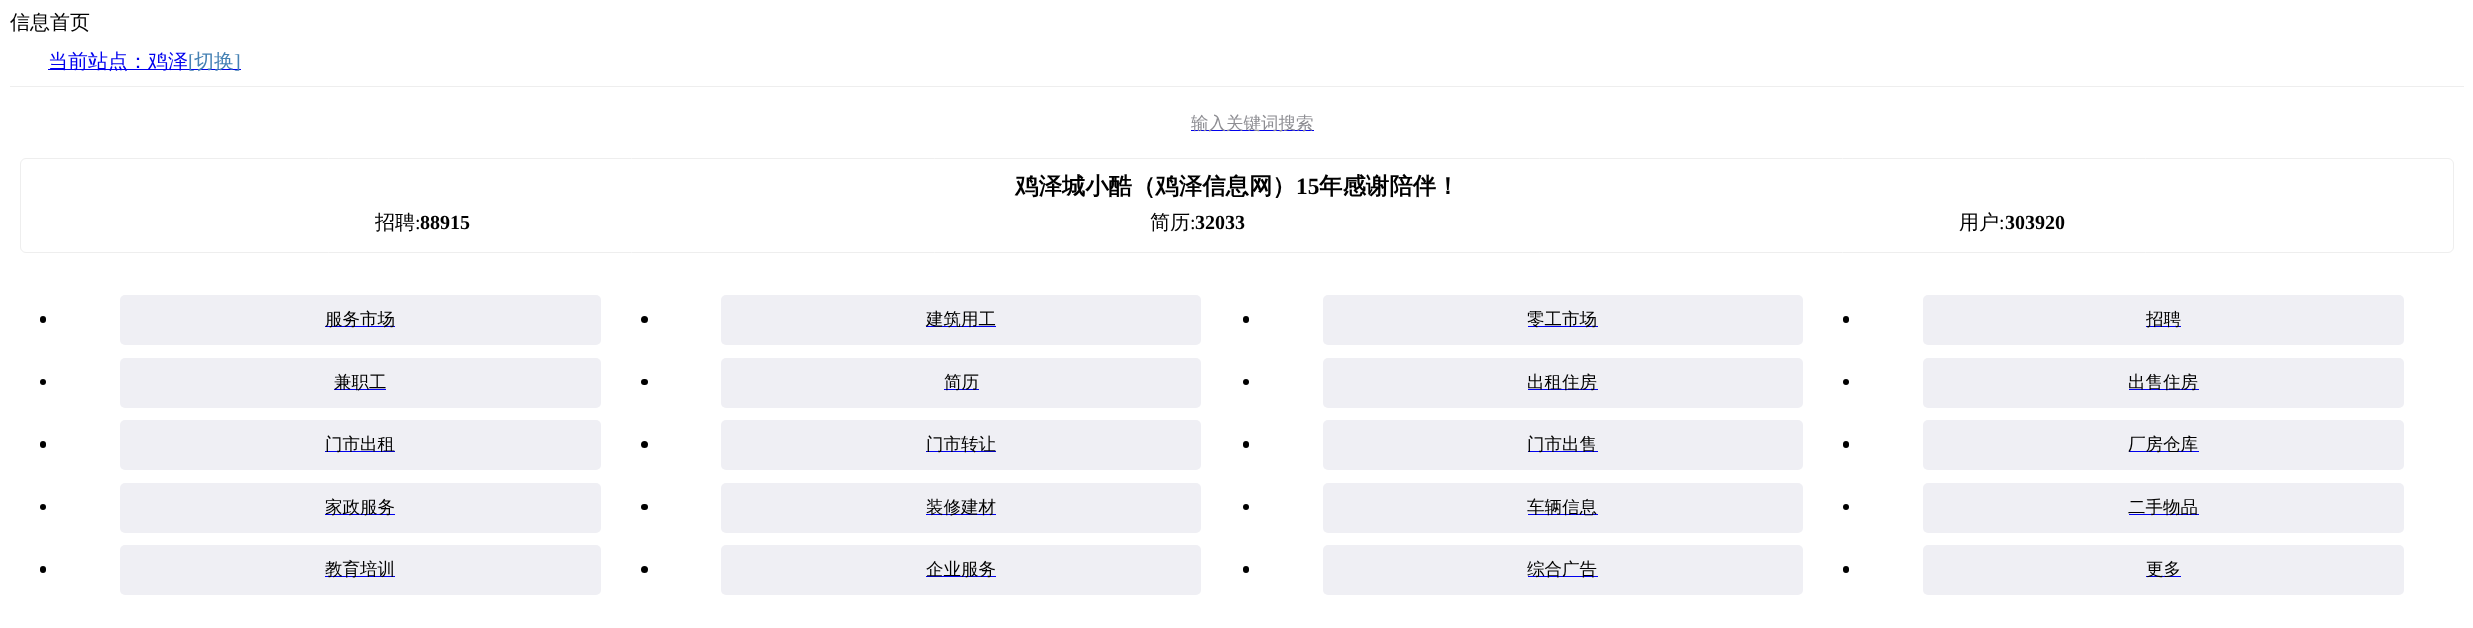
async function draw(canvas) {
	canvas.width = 2473;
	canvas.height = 628;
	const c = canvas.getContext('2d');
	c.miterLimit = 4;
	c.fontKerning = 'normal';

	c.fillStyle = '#fff';
	c.fillRect(0, 0, 2473, 628);
	c.font = '500 20px WenQuanYi Zen Hei';
	c.fillStyle = '#000';
	c.fillText('信息首页', 10, 29);
	c.fillStyle = '#eee';
	c.fillRect(10, 86, 2454, 1);
	c.fillStyle = '#00e';
	c.fillRect(48, 69, 193, 1);
	c.fillText('当前站点：鸡泽', 48, 68);
	c.font = '20px Liberation Serif';
	c.fillStyle = '#4682b4';
	c.fillText('[', 188, 68);
	c.font = '500 20px WenQuanYi Zen Hei';
	c.fillText('切换', 194, 68);
	c.font = '20px Liberation Serif';
	c.fillText(']', 234, 68);
	c.fillStyle = '#00e';
	c.fillRect(1191, 130, 123, 1);
	c.font = '500 17.5px WenQuanYi Zen Hei';
	c.fillStyle = '#8e8e93';
	c.fillText('输入关键词搜索', 1191, 129);
	c.beginPath();
	c.roundRect(20.5, 158.5, 2433, 94, 5.5);
	c.strokeStyle = '#eee';
	c.stroke();
	c.font = 'bold 23.4px WenQuanYi Zen Hei';
	c.fillStyle = '#000';
	c.fillText('鸡泽城小酷（鸡泽信息网）', 1015, 194);
	c.font = 'bold 23.4px Liberation Serif';
	c.fillText('15', 1296, 194);
	c.font = 'bold 23.4px WenQuanYi Zen Hei';
	c.fillText('年感谢陪伴！', 1319, 194);
	c.font = '500 20px WenQuanYi Zen Hei';
	c.fillText('招聘', 375, 229);
	c.font = '20px Liberation Serif';
	c.fillText(':', 415, 229);
	c.font = 'bold 20px Liberation Serif';
	c.fillText('88915', 420, 229);
	c.font = '500 20px WenQuanYi Zen Hei';
	c.fillText('简历', 1150, 229);
	c.font = '20px Liberation Serif';
	c.fillText(':', 1190, 229);
	c.font = 'bold 20px Liberation Serif';
	c.fillText('32033', 1195, 229);
	c.font = '500 20px WenQuanYi Zen Hei';
	c.fillText('用户', 1959, 229);
	c.font = '20px Liberation Serif';
	c.fillText(':', 1999, 229);
	c.font = 'bold 20px Liberation Serif';
	c.fillText('303920', 2005, 229);
	c.beginPath();
	c.roundRect(40, 316, 6, 7, 3);
	c.fill();
	c.fillStyle = '#efeff4';
	c.beginPath();
	c.roundRect(120, 295, 481, 50, 5);
	c.fill();
	c.fillStyle = '#00e';
	c.fillRect(325, 326, 70, 1);
	c.font = '500 17.5px WenQuanYi Zen Hei';
	c.fillStyle = '#000';
	c.fillText('服务市场', 325, 325);
	c.beginPath();
	c.arc(644.5, 319.5, 3.5, 0, 2 * Math.PI);
	c.fill();
	c.fillStyle = '#efeff4';
	c.beginPath();
	c.roundRect(721, 295, 480, 50, 5);
	c.fill();
	c.fillStyle = '#00e';
	c.fillRect(926, 326, 70, 1);
	c.fillStyle = '#000';
	c.fillText('建筑用工', 926, 325);
	c.beginPath();
	c.roundRect(1243, 316, 6, 7, 3);
	c.fill();
	c.fillStyle = '#efeff4';
	c.beginPath();
	c.roundRect(1323, 295, 480, 50, 5);
	c.fill();
	c.fillStyle = '#00e';
	c.fillRect(1528, 326, 70, 1);
	c.fillStyle = '#000';
	c.fillText('零工市场', 1527, 325);
	c.beginPath();
	c.roundRect(1843, 316, 6, 7, 3);
	c.fill();
	c.fillStyle = '#efeff4';
	c.beginPath();
	c.roundRect(1923, 295, 481, 50, 5);
	c.fill();
	c.fillStyle = '#00e';
	c.fillRect(2146, 326, 35, 1);
	c.fillStyle = '#000';
	c.fillText('招聘', 2146, 325);
	c.beginPath();
	c.arc(43, 382, 3, 0, 2 * Math.PI);
	c.fill();
	c.fillStyle = '#efeff4';
	c.beginPath();
	c.roundRect(120, 358, 481, 50, 5);
	c.fill();
	c.fillStyle = '#00e';
	c.fillRect(334, 389, 52, 1);
	c.fillStyle = '#000';
	c.fillText('兼职工', 334, 388);
	c.beginPath();
	c.roundRect(641, 379, 7, 6, 3);
	c.fill();
	c.fillStyle = '#efeff4';
	c.beginPath();
	c.roundRect(721, 358, 480, 50, 5);
	c.fill();
	c.fillStyle = '#00e';
	c.fillRect(944, 389, 35, 1);
	c.fillStyle = '#000';
	c.fillText('简历', 944, 388);
	c.beginPath();
	c.arc(1246, 382, 3, 0, 2 * Math.PI);
	c.fill();
	c.fillStyle = '#efeff4';
	c.beginPath();
	c.roundRect(1323, 358, 480, 50, 5);
	c.fill();
	c.fillStyle = '#00e';
	c.fillRect(1528, 389, 70, 1);
	c.fillStyle = '#000';
	c.fillText('出租住房', 1527, 388);
	c.beginPath();
	c.arc(1846, 382, 3, 0, 2 * Math.PI);
	c.fill();
	c.fillStyle = '#efeff4';
	c.beginPath();
	c.roundRect(1923, 358, 481, 50, 5);
	c.fill();
	c.fillStyle = '#00e';
	c.fillRect(2129, 389, 70, 1);
	c.fillStyle = '#000';
	c.fillText('出售住房', 2128, 388);
	c.beginPath();
	c.roundRect(40, 441, 6, 7, 3);
	c.fill();
	c.fillStyle = '#efeff4';
	c.beginPath();
	c.roundRect(120, 420, 481, 50, 5);
	c.fill();
	c.fillStyle = '#00e';
	c.fillRect(325, 451, 70, 1);
	c.fillStyle = '#000';
	c.fillText('门市出租', 325, 450);
	c.beginPath();
	c.arc(644.5, 444.5, 3.5, 0, 2 * Math.PI);
	c.fill();
	c.fillStyle = '#efeff4';
	c.beginPath();
	c.roundRect(721, 420, 480, 50, 5);
	c.fill();
	c.fillStyle = '#00e';
	c.fillRect(926, 451, 70, 1);
	c.fillStyle = '#000';
	c.fillText('门市转让', 926, 450);
	c.beginPath();
	c.roundRect(1243, 441, 6, 7, 3);
	c.fill();
	c.fillStyle = '#efeff4';
	c.beginPath();
	c.roundRect(1323, 420, 480, 50, 5);
	c.fill();
	c.fillStyle = '#00e';
	c.fillRect(1528, 451, 70, 1);
	c.fillStyle = '#000';
	c.fillText('门市出售', 1527, 450);
	c.beginPath();
	c.roundRect(1843, 441, 6, 7, 3);
	c.fill();
	c.fillStyle = '#efeff4';
	c.beginPath();
	c.roundRect(1923, 420, 481, 50, 5);
	c.fill();
	c.fillStyle = '#00e';
	c.fillRect(2129, 451, 70, 1);
	c.fillStyle = '#000';
	c.fillText('厂房仓库', 2128, 450);
	c.beginPath();
	c.arc(43, 507, 3, 0, 2 * Math.PI);
	c.fill();
	c.fillStyle = '#efeff4';
	c.beginPath();
	c.roundRect(120, 483, 481, 50, 5);
	c.fill();
	c.fillStyle = '#00e';
	c.fillRect(325, 514, 70, 1);
	c.fillStyle = '#000';
	c.fillText('家政服务', 325, 513);
	c.beginPath();
	c.roundRect(641, 504, 7, 6, 3);
	c.fill();
	c.fillStyle = '#efeff4';
	c.beginPath();
	c.roundRect(721, 483, 480, 50, 5);
	c.fill();
	c.fillStyle = '#00e';
	c.fillRect(926, 514, 70, 1);
	c.fillStyle = '#000';
	c.fillText('装修建材', 926, 513);
	c.beginPath();
	c.arc(1246, 507, 3, 0, 2 * Math.PI);
	c.fill();
	c.fillStyle = '#efeff4';
	c.beginPath();
	c.roundRect(1323, 483, 480, 50, 5);
	c.fill();
	c.fillStyle = '#00e';
	c.fillRect(1528, 514, 70, 1);
	c.fillStyle = '#000';
	c.fillText('车辆信息', 1527, 513);
	c.beginPath();
	c.arc(1846, 507, 3, 0, 2 * Math.PI);
	c.fill();
	c.fillStyle = '#efeff4';
	c.beginPath();
	c.roundRect(1923, 483, 481, 50, 5);
	c.fill();
	c.fillStyle = '#00e';
	c.fillRect(2129, 514, 70, 1);
	c.fillStyle = '#000';
	c.fillText('二手物品', 2128, 513);
	c.beginPath();
	c.roundRect(40, 566, 6, 7, 3);
	c.fill();
	c.fillStyle = '#efeff4';
	c.beginPath();
	c.roundRect(120, 545, 481, 50, 5);
	c.fill();
	c.fillStyle = '#00e';
	c.fillRect(325, 576, 70, 1);
	c.fillStyle = '#000';
	c.fillText('教育培训', 325, 575);
	c.beginPath();
	c.arc(644.5, 569.5, 3.5, 0, 2 * Math.PI);
	c.fill();
	c.fillStyle = '#efeff4';
	c.beginPath();
	c.roundRect(721, 545, 480, 50, 5);
	c.fill();
	c.fillStyle = '#00e';
	c.fillRect(926, 576, 70, 1);
	c.fillStyle = '#000';
	c.fillText('企业服务', 926, 575);
	c.beginPath();
	c.roundRect(1243, 566, 6, 7, 3);
	c.fill();
	c.fillStyle = '#efeff4';
	c.beginPath();
	c.roundRect(1323, 545, 480, 50, 5);
	c.fill();
	c.fillStyle = '#00e';
	c.fillRect(1528, 576, 70, 1);
	c.fillStyle = '#000';
	c.fillText('综合广告', 1527, 575);
	c.beginPath();
	c.roundRect(1843, 566, 6, 7, 3);
	c.fill();
	c.fillStyle = '#efeff4';
	c.beginPath();
	c.roundRect(1923, 545, 481, 50, 5);
	c.fill();
	c.fillStyle = '#00e';
	c.fillRect(2146, 576, 35, 1);
	c.fillStyle = '#000';
	c.fillText('更多', 2146, 575);
}

draw(document.querySelector('canvas'));
